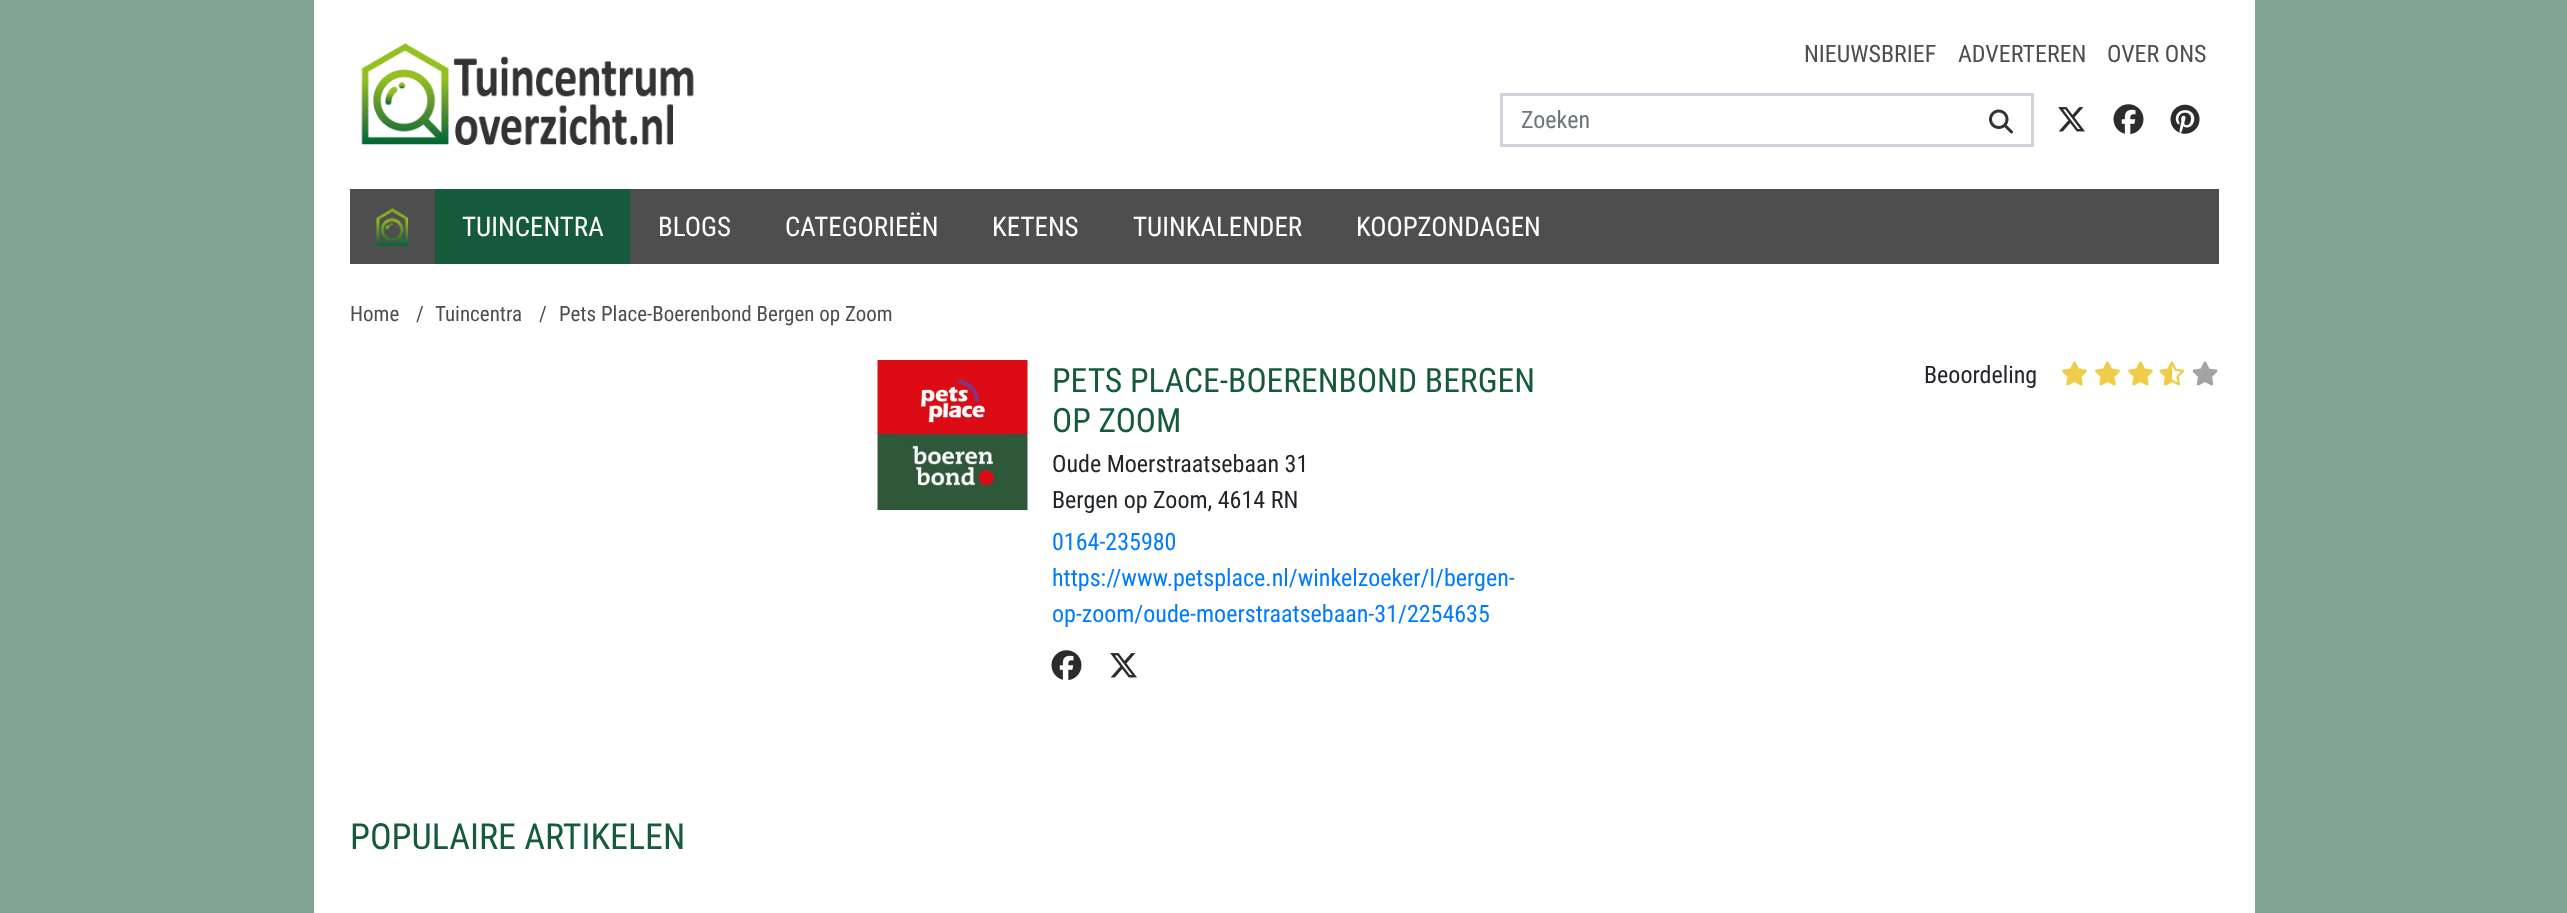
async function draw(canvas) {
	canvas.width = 2567;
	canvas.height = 913;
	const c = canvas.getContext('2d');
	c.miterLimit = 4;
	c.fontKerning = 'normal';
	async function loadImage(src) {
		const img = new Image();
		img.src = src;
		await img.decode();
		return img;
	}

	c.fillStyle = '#84a595';
	c.fillRect(0, 0, 2567, 913);
	c.fillStyle = '#fff';
	c.fillRect(314, 0, 1941, 913);
	c.drawImage(await loadImage('img1.png'), 361, 43, 333, 102);
	c.font = '24px Roboto Condensed';
	c.fillStyle = '#4e4e4e';
	for (const [text, x, y] of [
		['NIEUWSBRIEF', 1804, 62],
		['ADVERTEREN', 1958, 62],
		['OVER ONS', 2107, 62],
	]) {
		c.fillText(text, x, y);
	}
	for (const [x, y, w, h, color] of [
		[1500, 93, 534, 3, '#ced4da'],
		[1500, 144, 444, 3, '#ced4da'],
		[1500, 93, 3, 54, '#ced4da'],
	]) {
		c.fillStyle = color;
		c.fillRect(x, y, w, h);
	}
	c.fillStyle = '#6c757d';
	c.fillText('Zoeken', 1521, 128);
	c.fillStyle = '#ced4da';
	c.fillRect(2031, 93, 3, 54);
	c.fillRect(1944, 144, 90, 3);
	c.drawImage(await loadImage('img2.png'), 1989, 109, 24, 25);
	c.drawImage(await loadImage('img3.png'), 2058, 107, 27, 25);
	c.drawImage(await loadImage('img4.png'), 2113, 104, 31, 31);
	c.drawImage(await loadImage('img5.png'), 2170, 104, 30, 30);
	c.fillStyle = '#4e4e4e';
	c.fillRect(350, 189, 1869, 75);
	c.drawImage(await loadImage('img6.png'), 376, 208, 32, 38);
	c.fillStyle = '#165a3c';
	c.fillRect(435, 189, 195, 75);
	c.font = '27px Roboto Condensed';
	c.fillStyle = '#fff';
	for (const [text, x, y] of [
		['TUINCENTRA', 462, 236],
		['BLOGS', 658, 236],
		['CATEGORIEËN', 785, 236],
		['KETENS', 992, 236],
		['TUINKALENDER', 1133, 236],
		['KOOPZONDAGEN', 1356, 236],
	]) {
		c.fillText(text, x, y);
	}
	c.font = '21px Roboto Condensed';
	c.fillStyle = '#4e4e4e';
	for (const [text, x, y] of [
		['Home', 350, 321],
		['/', 416, 321],
		['Tuincentra', 435, 321],
		['/', 539, 321],
		['Pets Place-Boerenbond Bergen op Zoom', 559, 321],
	]) {
		c.fillText(text, x, y);
	}
	c.drawImage(await loadImage('img7.png'), 877, 360, 151, 150);
	c.font = '33.6px Roboto Condensed';
	c.fillStyle = '#165a3c';
	c.fillText('PETS PLACE-BOERENBOND BERGEN', 1052, 392);
	c.fillText('OP ZOOM', 1052, 432);
	c.font = '24px Roboto Condensed';
	c.fillStyle = '#212529';
	c.fillText('Oude Moerstraatsebaan 31', 1052, 472);
	c.fillText('Bergen op Zoom, 4614 RN', 1052, 508);
	c.fillStyle = '#007bff';
	for (const [text, x, y] of [
		['0164-235980', 1052, 550],
		['https://www.petsplace.nl/winkelzoeker/l/bergen-', 1052, 586],
		['op-zoom/oude-moerstraatsebaan-31/2254635', 1052, 622],
	]) {
		c.fillText(text, x, y);
	}
	c.drawImage(await loadImage('img4.png'), 1051, 650, 31, 31);
	c.drawImage(await loadImage('img3.png'), 1110, 653, 27, 25);
	c.fillStyle = '#212529';
	c.fillText('Beoordeling', 1924, 383);
	c.drawImage(await loadImage('img8.png'), 2062, 361, 25, 25);
	c.drawImage(await loadImage('img8.png'), 2095, 361, 25, 25);
	c.drawImage(await loadImage('img8.png'), 2128, 361, 25, 25);
	c.drawImage(await loadImage('img9.png'), 2159, 361, 13, 25);
	c.drawImage(await loadImage('img10.png'), 2159, 361, 26, 25);
	c.drawImage(await loadImage('img11.png'), 2192, 361, 26, 25);
	c.font = '36px Roboto Condensed';
	c.fillStyle = '#165a3c';
	c.fillText('POPULAIRE ARTIKELEN', 350, 849);
}

draw(document.querySelector('canvas'));
